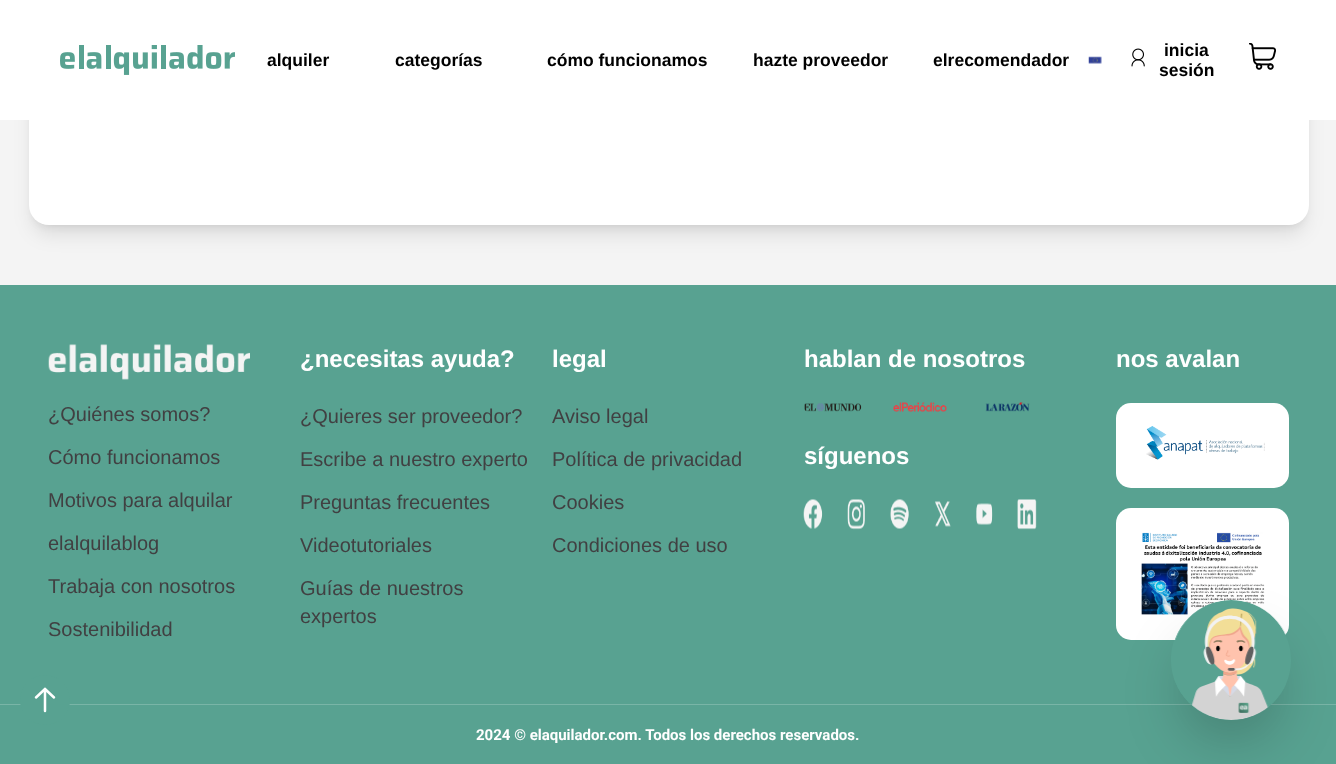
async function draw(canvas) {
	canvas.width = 1336;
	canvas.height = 764;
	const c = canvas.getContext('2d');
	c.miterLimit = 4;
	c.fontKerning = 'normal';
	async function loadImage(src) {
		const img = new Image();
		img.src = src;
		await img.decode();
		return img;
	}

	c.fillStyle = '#58a291';
	c.fillRect(0, 0, 1336, 764);
	c.fillStyle = '#f4f4f4';
	c.fillRect(0, 120, 1336, 165);
	c.fillStyle = '#0000001a';
	c.filter = 'blur(4px)';
	c.beginPath();
	c.roundRect(34, -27, 1270, 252, 15);
	c.fill();
	c.filter = 'none';
	c.filter = 'blur(9.5px)';
	c.beginPath();
	c.roundRect(33, -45, 1272, 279, 16);
	c.fill();
	c.filter = 'none';
	c.fillStyle = '#fff';
	c.beginPath();
	c.roundRect(29, -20, 1280, 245, 20);
	c.fill();
	c.fillStyle = '#79b5a7';
	c.fillRect(0, 704, 1336, 1);
	c.fillStyle = '#58a291';
	c.beginPath();
	c.arc(45, 700, 25, 0, 2 * Math.PI);
	c.fill();
	c.beginPath();
	c.moveTo(36, 697.5);
	c.lineTo(45, 689);
	c.moveTo(45, 689);
	c.lineTo(54, 697.5);
	c.moveTo(45, 689);
	c.lineTo(45, 711);
	c.strokeStyle = '#fff';
	c.lineWidth = 2.5;
	c.lineCap = 'round';
	c.lineJoin = 'round';
	c.stroke();
	c.fillStyle = '#fff';
	c.beginPath();
	c.roundRect(1116, 508, 173, 132, 15);
	c.fill();
	c.drawImage(await loadImage('img16.png'), 1141, 532, 124, 83);
	c.save();
	c.beginPath();
	c.moveTo(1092, 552);
	c.lineTo(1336, 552);
	c.lineTo(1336, 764);
	c.lineTo(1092, 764);
	c.closePath();
	c.moveTo(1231, 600);
	c.bezierCurveTo(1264, 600, 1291, 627, 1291, 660);
	c.bezierCurveTo(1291, 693, 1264, 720, 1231, 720);
	c.bezierCurveTo(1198, 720, 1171, 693, 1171, 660);
	c.bezierCurveTo(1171, 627, 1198, 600, 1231, 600);
	c.closePath();
	c.clip('evenodd');
	c.fillStyle = '#00000040';
	c.filter = 'blur(31px)';
	c.beginPath();
	c.roundRect(1186, 646, 90, 90, 45);
	c.fill();
	c.filter = 'none';
	c.restore();
	c.drawImage(await loadImage('img1.png'), 1174, 600, 112, 120);
	c.fillRect(0, 0, 1336, 120);
	c.drawImage(await loadImage('img2.png'), 60, 45, 175, 30);
	c.font = 'bold 17.5px Liberation Sans';
	c.fillStyle = '#000';
	for (const [text, x, y] of [
		['alquiler', 267, 66],
		['categorías', 395, 66],
		['cómo funcionamos', 547, 66],
		['hazte proveedor', 753, 66],
		['elrecomendador', 933, 66],
	]) {
		c.fillText(text, x, y);
	}
	c.drawImage(await loadImage('img3.png'), 1088, 56, 14, 8);
	c.drawImage(await loadImage('img4.png'), 1131, 48, 14, 19);
	c.fillText('inicia', 1164, 56);
	c.fillText('sesión', 1159, 76);
	c.drawImage(await loadImage('img5.png'), 1249, 43, 27, 27);
	c.font = 'bold 24px Liberation Sans';
	c.fillStyle = '#fff';
	c.fillText('¿necesitas ayuda?', 300, 367);
	c.font = '20px Liberation Sans';
	c.fillStyle = '#414042';
	for (const [text, x, y] of [
		['¿Quieres ser proveedor?', 300, 423],
		['Escribe a nuestro experto', 300, 466],
		['Preguntas frecuentes', 300, 509],
		['Videotutoriales', 300, 552],
		['Guías de nuestros', 300, 595],
		['expertos', 300, 623],
	]) {
		c.fillText(text, x, y);
	}
	c.font = 'bold 24px Liberation Sans';
	c.fillStyle = '#fff';
	c.fillText('legal', 552, 367);
	c.font = '20px Liberation Sans';
	c.fillStyle = '#414042';
	for (const [text, x, y] of [
		['Aviso legal', 552, 423],
		['Política de privacidad', 552, 466],
		['Cookies', 552, 509],
		['Condiciones de uso', 552, 552],
	]) {
		c.fillText(text, x, y);
	}
	c.font = 'bold 24px Liberation Sans';
	c.fillStyle = '#fff';
	c.fillText('hablan de nosotros', 804, 367);
	c.drawImage(await loadImage('img6.png'), 804, 403, 58, 9);
	c.drawImage(await loadImage('img7.png'), 893, 402, 54, 10);
	c.drawImage(await loadImage('img8.png'), 985, 402, 45, 10);
	c.fillText('síguenos', 804, 464);
	c.drawImage(await loadImage('img9.png'), 803, 499, 20, 30);
	c.drawImage(await loadImage('img10.png'), 847, 499, 18, 31);
	c.drawImage(await loadImage('img11.png'), 890, 499, 19, 30);
	c.drawImage(await loadImage('img12.png'), 935, 501, 16, 26);
	c.drawImage(await loadImage('img13.png'), 976, 503, 17, 22);
	c.drawImage(await loadImage('img14.png'), 1017, 499, 20, 31);
	c.fillText('nos avalan', 1116, 367);
	c.beginPath();
	c.roundRect(1116, 403, 173, 85, 15);
	c.fill();
	c.drawImage(await loadImage('img15.png'), 1146, 426, 119, 34);
	c.drawImage(await loadImage('img17.png'), 48, 344, 202, 36);
	c.font = '20px Liberation Sans';
	c.fillStyle = '#414042';
	for (const [text, x, y] of [
		['¿Quiénes somos?', 48, 421],
		['Cómo funcionamos', 48, 464],
		['Motivos para alquilar', 48, 507],
		['elalquilablog', 48, 550],
		['Trabaja con nosotros', 48, 593],
		['Sostenibilidad', 48, 636],
	]) {
		c.fillText(text, x, y);
	}
	c.font = 'bold 15px Roboto';
	c.fillStyle = '#fff';
	c.fillText('2024 © elaquilador.com. Todos los derechos reservados.', 476, 740);
}

draw(document.querySelector('canvas'));
